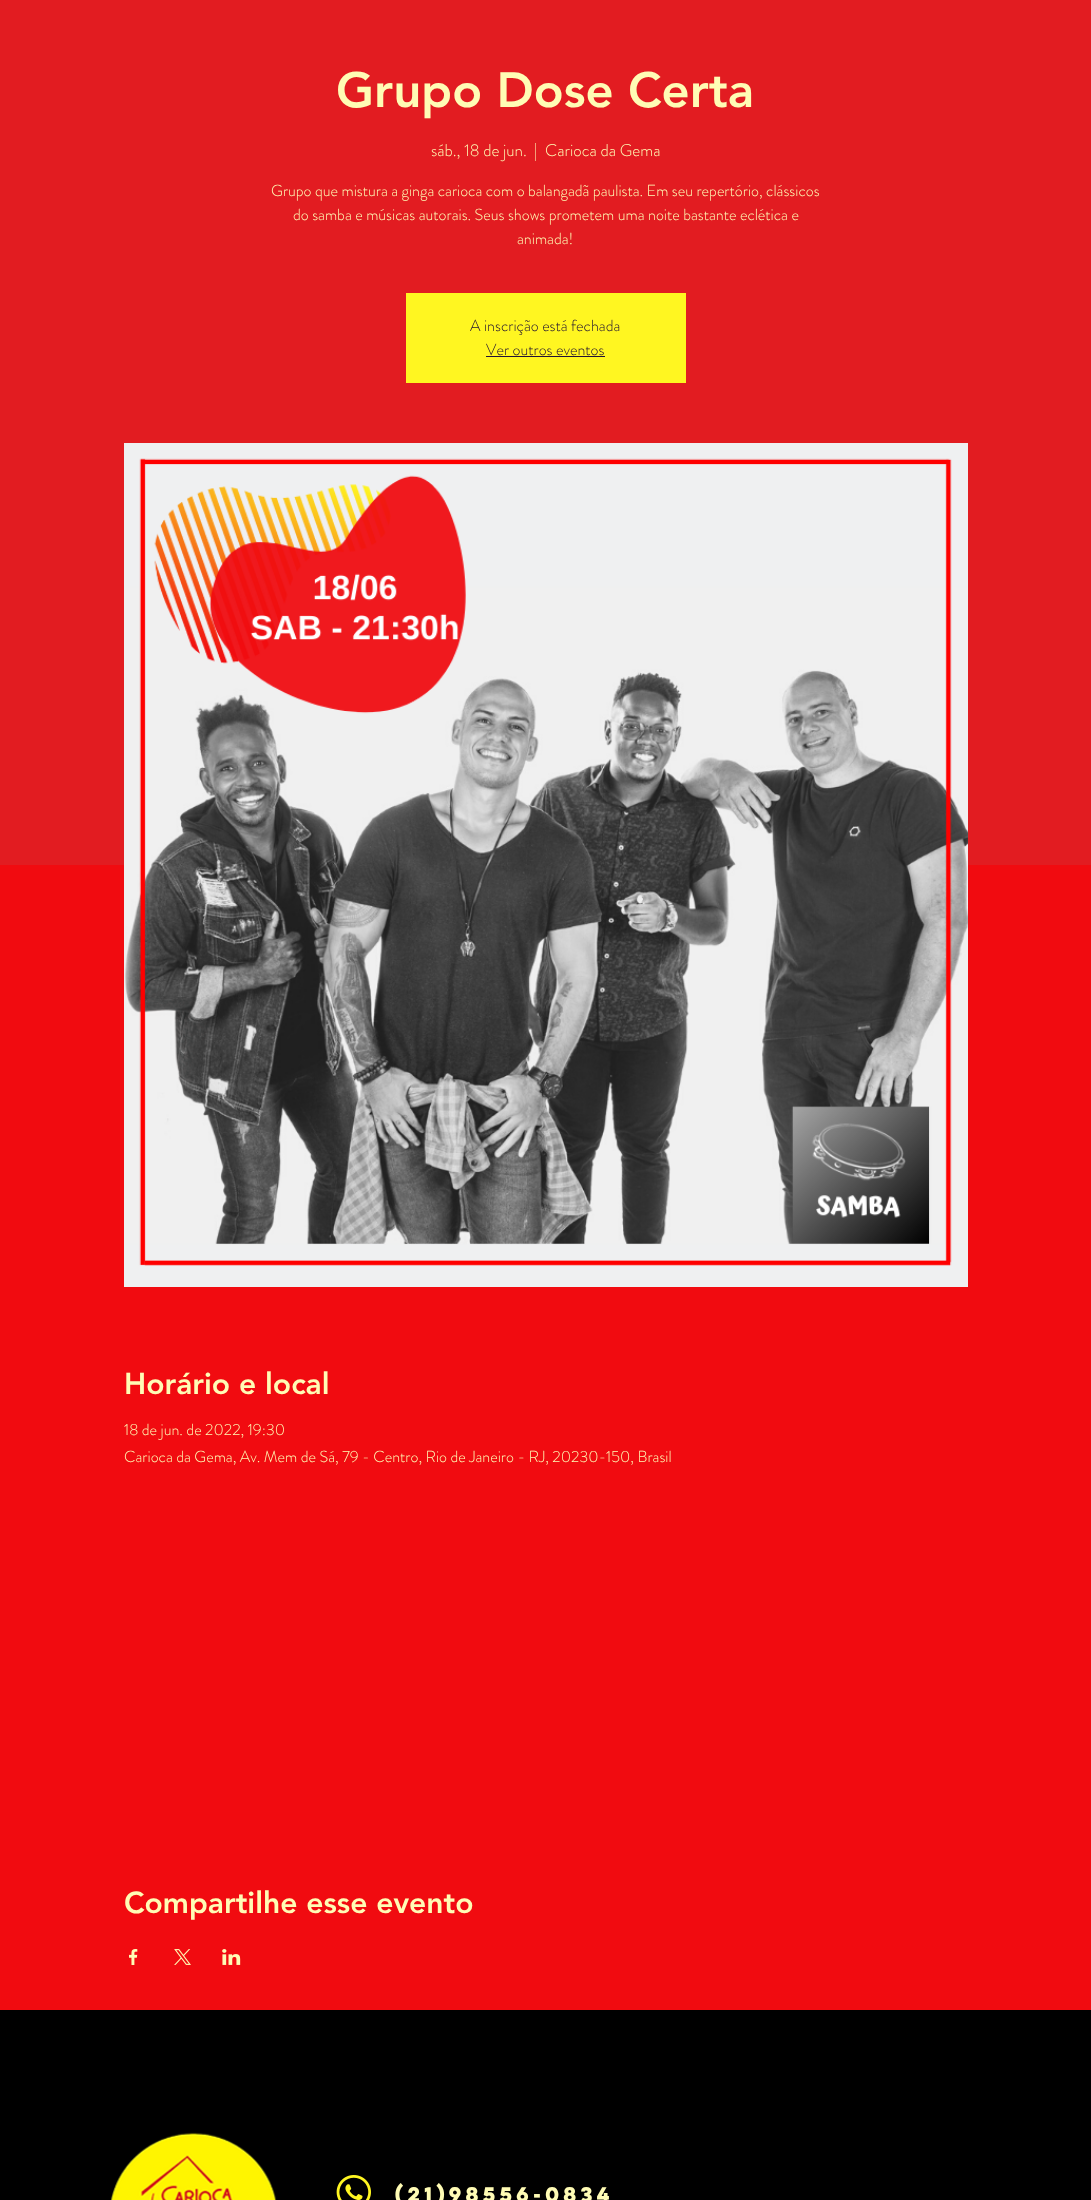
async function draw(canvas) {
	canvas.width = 1091;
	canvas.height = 2200;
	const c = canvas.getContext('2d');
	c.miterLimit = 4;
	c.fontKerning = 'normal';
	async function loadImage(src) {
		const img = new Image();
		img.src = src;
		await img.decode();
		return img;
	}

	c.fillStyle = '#f10b10';
	c.fillRect(0, 0, 1091, 2200);
	c.fillStyle = '#e21c21';
	c.fillRect(0, 0, 1091, 865);
	c.font = '900 49px "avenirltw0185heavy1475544"';
	c.fillStyle = '#fffcb5';
	c.fillText('Grupo Dose Certa', 336, 107);
	c.font = '300 17px "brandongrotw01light"';
	for (const [text, x, y] of [
		['sáb., 18 de jun.', 431, 156],
		['|', 534, 156],
		['Carioca da Gema', 545, 156],
	]) {
		c.fillText(text, x, y);
	}
	c.font = '300 16px "brandongrotw01light"';
	for (const [text, x, y] of [
		['Grupo que mistura a ginga carioca com o balangadã paulista. Em seu repertório, clássicos', 271, 196],
		['do samba e músicas autorais. Seus shows prometem uma noite bastante eclética e', 293, 220],
		['animada!', 517, 244],
	]) {
		c.fillText(text, x, y);
	}
	c.fillStyle = '#fff621';
	c.fillRect(406, 293, 280, 90);
	c.fillStyle = '#221333';
	c.fillText('A inscrição está fechada', 470, 331);
	c.fillText('Ver outros eventos', 486, 355);
	c.fillRect(486, 356, 119, 1);
	c.drawImage(await loadImage('img1.png'), 124, 443, 844, 844);
	c.font = '900 30px "avenirltw0185heavy1475544"';
	c.fillStyle = '#fffcb5';
	c.fillText('Horário e local', 124, 1394);
	c.font = '300 16px "brandongrotw01light"';
	c.fillText('18 de jun. de 2022, 19:30', 124, 1435);
	c.fillText('Carioca da Gema, Av. Mem de Sá, 79 - Centro, Rio de Janeiro - RJ, 20230-150, Brasil', 124, 1462);
	c.font = '900 30px "avenirltw0185heavy1475544"';
	c.fillText('Compartilhe esse evento', 124, 1913);
	c.drawImage(await loadImage('img2.png'), 129, 1949, 9, 16);
	c.drawImage(await loadImage('img3.png'), 174, 1949, 17, 16);
	c.drawImage(await loadImage('img4.png'), 222, 1949, 19, 16);
	c.fillStyle = '#000';
	c.fillRect(0, 2010, 1091, 190);
	c.drawImage(await loadImage('img5.png'), 110, 2132, 167, 68);
	c.drawImage(await loadImage('img6.png'), 336, 2175, 35, 25);
	c.font = 'bold 19px "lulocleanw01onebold"';
	c.fillStyle = '#fffcb5';
	c.fillText('(21)98556-0834', 395, 2202);
}

draw(document.querySelector('canvas'));
